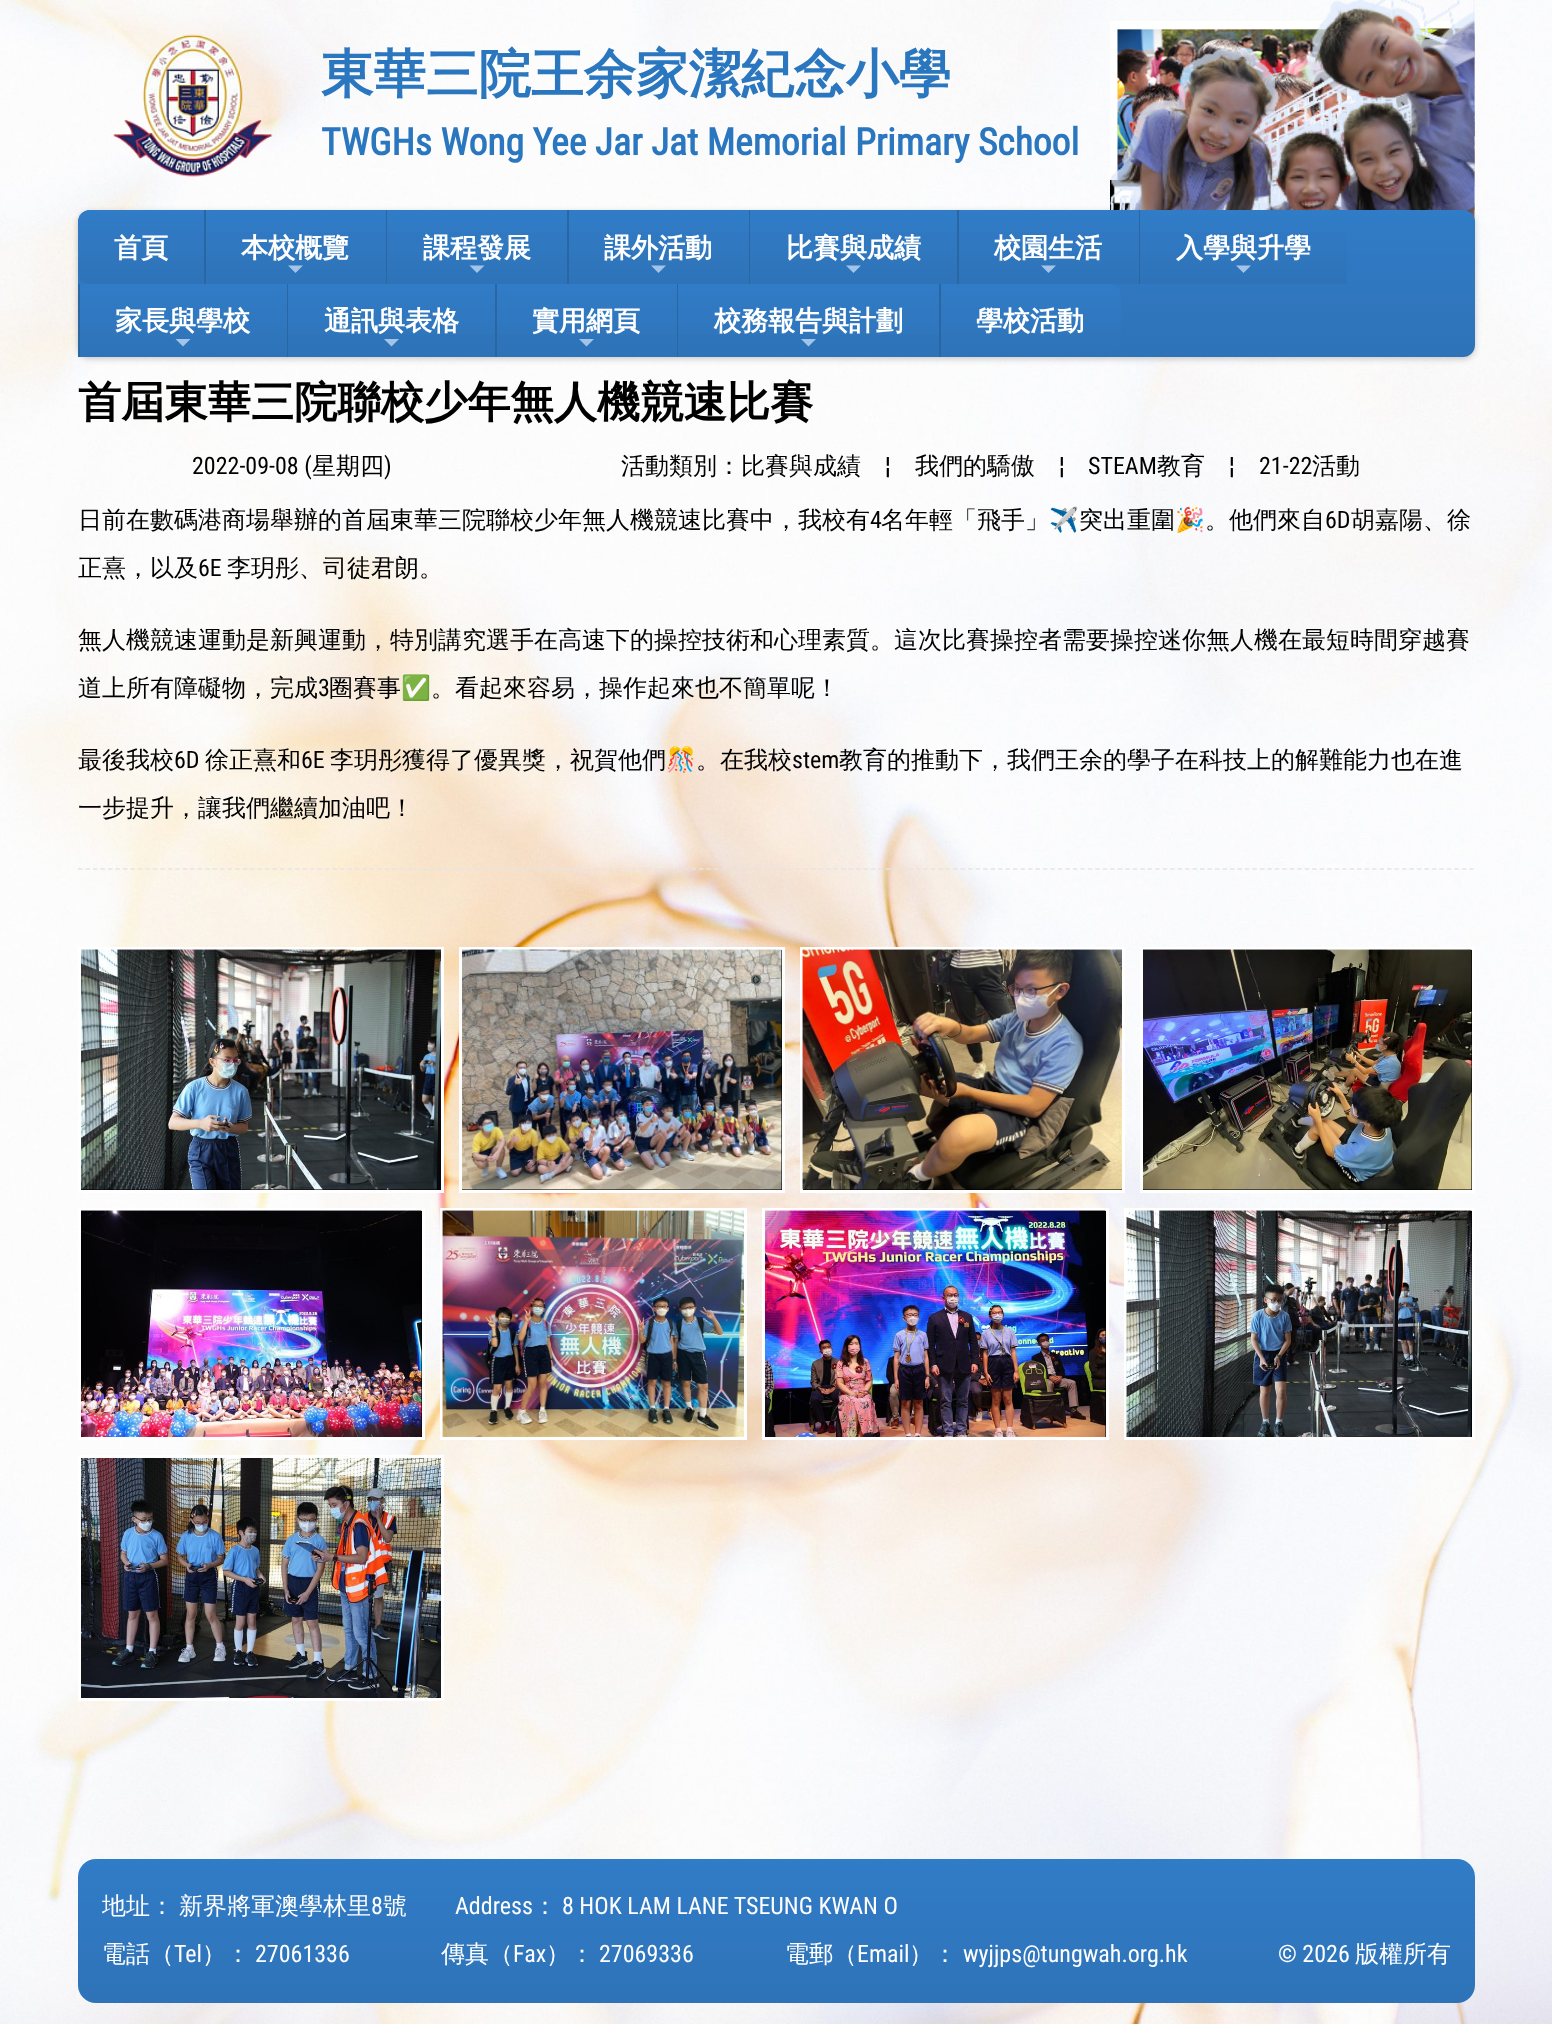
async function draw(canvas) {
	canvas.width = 1552;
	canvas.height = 2024;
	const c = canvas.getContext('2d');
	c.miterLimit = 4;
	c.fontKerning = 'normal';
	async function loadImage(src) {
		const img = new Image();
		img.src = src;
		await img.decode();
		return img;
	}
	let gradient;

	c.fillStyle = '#fff';
	c.fillRect(0, 0, 1552, 2024);
	c.drawImage(await loadImage('img1.png'), 0, 0, 1552, 2024);
	c.drawImage(await loadImage('img2.png'), 113, 34, 160, 143);
	c.font = 'bold 52.5px WenQuanYi Zen Hei';
	c.fillStyle = '#2a77bf';
	c.fillText('東華三院王余家潔紀念小學', 321, 92);
	c.font = 'bold 37.5px Roboto Condensed';
	c.fillText('TWGHs Wong Yee Jar Jat Memorial Primary School', 321, 155);
	c.fillStyle = '#00000033';
	c.filter = 'blur(3px)';
	c.beginPath();
	c.roundRect(78, 212, 1397, 147, 12);
	c.fill();
	c.filter = 'none';
	c.strokeStyle = '#fff';
	c.lineWidth = 8;
	c.strokeRect(1114, 25, 237, 181);
	c.drawImage(await loadImage('img5.png'), 1117, 28, 230, 152);
	c.save();
	c.beginPath();
	c.rect(1110, 0, 365, 210);
	c.clip();
	c.strokeRect(1359, 25, 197, 181);
	c.restore();
	c.drawImage(await loadImage('img6.png'), 1362, 28, 113, 175);
	c.drawImage(await loadImage('img7.png'), 1110, 180, 365, 30);
	c.drawImage(await loadImage('img3.png'), 1109, 0, 366, 210);
	c.drawImage(await loadImage('img4.png'), 1110, 0, 365, 222);
	gradient = c.createLinearGradient(776, 210, 776, 357);
	gradient.addColorStop(0, '#317cc7');
	gradient.addColorStop(1, '#2e73b8');
	c.fillStyle = gradient;
	c.beginPath();
	c.roundRect(78, 210, 1397, 147, 12);
	c.fill();
	gradient = c.createLinearGradient(141, 210, 141, 284);
	gradient.addColorStop(0, '#317cc7');
	gradient.addColorStop(1, '#2e73b8');
	c.fillStyle = gradient;
	c.beginPath();
	c.roundRect(78, 210, 126, 74, [12, 0, 0, 12]);
	c.fill();
	c.font = 'bold 27px WenQuanYi Zen Hei';
	c.fillStyle = '#fff';
	c.fillText('首頁', 114, 257);
	c.fillStyle = '#2966a2';
	c.fillRect(204, 210, 2, 74);
	gradient = c.createLinearGradient(296, 210, 296, 284);
	gradient.addColorStop(0, '#317cc7');
	gradient.addColorStop(1, '#2e73b8');
	c.fillStyle = gradient;
	c.fillRect(206, 232, 180, 52);
	c.fillStyle = '#fff';
	c.fillText('本校概覽', 241, 257);
	c.fillStyle = '#a1c4e8';
	c.beginPath();
	c.moveTo(288, 265.5);
	c.lineTo(303, 265.5);
	c.lineTo(295.5, 273);
	c.closePath();
	c.fill();
	c.fillStyle = '#2966a2';
	c.fillRect(386, 210, 1, 74);
	gradient = c.createLinearGradient(477, 210, 477, 284);
	gradient.addColorStop(0, '#317cc7');
	gradient.addColorStop(1, '#2e73b8');
	c.fillStyle = gradient;
	c.fillRect(387, 232, 180, 52);
	c.fillStyle = '#fff';
	c.fillText('課程發展', 423, 257);
	c.fillStyle = '#a1c4e8';
	c.beginPath();
	c.moveTo(469.5, 265.5);
	c.lineTo(484.5, 265.5);
	c.lineTo(477, 273);
	c.closePath();
	c.fill();
	c.fillStyle = '#2966a2';
	c.fillRect(567, 210, 2, 74);
	gradient = c.createLinearGradient(659, 210, 659, 284);
	gradient.addColorStop(0, '#317cc7');
	gradient.addColorStop(1, '#2e73b8');
	c.fillStyle = gradient;
	c.fillRect(569, 232, 180, 52);
	c.fillStyle = '#fff';
	c.fillText('課外活動', 604, 257);
	c.fillStyle = '#a1c4e8';
	c.beginPath();
	c.moveTo(651, 265.5);
	c.lineTo(666, 265.5);
	c.lineTo(658.5, 273);
	c.closePath();
	c.fill();
	c.fillStyle = '#2966a2';
	c.fillRect(749, 210, 1, 74);
	gradient = c.createLinearGradient(854, 210, 854, 284);
	gradient.addColorStop(0, '#317cc7');
	gradient.addColorStop(1, '#2e73b8');
	c.fillStyle = gradient;
	c.fillRect(750, 232, 207, 52);
	c.fillStyle = '#fff';
	c.fillText('比賽與成績', 786, 257);
	c.fillStyle = '#a1c4e8';
	c.beginPath();
	c.moveTo(846, 265.5);
	c.lineTo(861, 265.5);
	c.lineTo(853.5, 273);
	c.closePath();
	c.fill();
	c.fillStyle = '#2966a2';
	c.fillRect(957, 210, 2, 74);
	gradient = c.createLinearGradient(1049, 210, 1049, 284);
	gradient.addColorStop(0, '#317cc7');
	gradient.addColorStop(1, '#2e73b8');
	c.fillStyle = gradient;
	c.fillRect(959, 232, 180, 52);
	c.fillStyle = '#fff';
	c.fillText('校園生活', 994, 257);
	c.fillStyle = '#a1c4e8';
	c.beginPath();
	c.moveTo(1041, 265.5);
	c.lineTo(1056, 265.5);
	c.lineTo(1048.5, 273);
	c.closePath();
	c.fill();
	c.fillStyle = '#2966a2';
	c.fillRect(1139, 210, 1, 74);
	gradient = c.createLinearGradient(1244, 210, 1244, 284);
	gradient.addColorStop(0, '#317cc7');
	gradient.addColorStop(1, '#2e73b8');
	c.fillStyle = gradient;
	c.fillRect(1140, 232, 207, 52);
	c.fillStyle = '#fff';
	c.fillText('入學與升學', 1176, 257);
	c.fillStyle = '#a1c4e8';
	c.beginPath();
	c.moveTo(1236, 265.5);
	c.lineTo(1251, 265.5);
	c.lineTo(1243.5, 273);
	c.closePath();
	c.fill();
	c.fillStyle = '#2966a2';
	c.fillRect(78, 284, 2, 73);
	gradient = c.createLinearGradient(183, 284, 183, 357);
	gradient.addColorStop(0, '#317cc7');
	gradient.addColorStop(1, '#2e73b8');
	c.fillStyle = gradient;
	c.fillRect(80, 284, 207, 73);
	c.fillStyle = '#fff';
	c.fillText('家長與學校', 115, 330);
	c.fillStyle = '#a1c4e8';
	c.beginPath();
	c.moveTo(175.5, 339);
	c.lineTo(190.5, 339);
	c.lineTo(183, 346.5);
	c.closePath();
	c.fill();
	c.fillStyle = '#2966a2';
	c.fillRect(287, 284, 1, 73);
	gradient = c.createLinearGradient(392, 284, 392, 357);
	gradient.addColorStop(0, '#317cc7');
	gradient.addColorStop(1, '#2e73b8');
	c.fillStyle = gradient;
	c.fillRect(288, 284, 207, 51);
	c.fillStyle = '#fff';
	c.fillText('通訊與表格', 324, 330);
	c.fillStyle = '#a1c4e8';
	c.beginPath();
	c.moveTo(384, 339);
	c.lineTo(399, 339);
	c.lineTo(391.5, 346.5);
	c.closePath();
	c.fill();
	c.fillStyle = '#2966a2';
	c.fillRect(495, 284, 2, 73);
	gradient = c.createLinearGradient(587, 284, 587, 357);
	gradient.addColorStop(0, '#317cc7');
	gradient.addColorStop(1, '#2e73b8');
	c.fillStyle = gradient;
	c.fillRect(497, 284, 180, 51);
	c.fillStyle = '#fff';
	c.fillText('實用網頁', 532, 330);
	c.fillStyle = '#a1c4e8';
	c.beginPath();
	c.moveTo(579, 339);
	c.lineTo(594, 339);
	c.lineTo(586.5, 346.5);
	c.closePath();
	c.fill();
	c.fillStyle = '#2966a2';
	c.fillRect(677, 284, 1, 73);
	gradient = c.createLinearGradient(809, 284, 809, 357);
	gradient.addColorStop(0, '#317cc7');
	gradient.addColorStop(1, '#2e73b8');
	c.fillStyle = gradient;
	c.fillRect(678, 284, 261, 51);
	c.fillStyle = '#fff';
	c.fillText('校務報告與計劃', 714, 330);
	c.fillStyle = '#a1c4e8';
	c.beginPath();
	c.moveTo(801, 339);
	c.lineTo(816, 339);
	c.lineTo(808.5, 346.5);
	c.closePath();
	c.fill();
	c.fillStyle = '#2966a2';
	c.fillRect(939, 284, 2, 73);
	gradient = c.createLinearGradient(1031, 284, 1031, 357);
	gradient.addColorStop(0, '#317cc7');
	gradient.addColorStop(1, '#2e73b8');
	c.fillStyle = gradient;
	c.beginPath();
	c.roundRect(941, 284, 180, 73, [0, 12, 12, 0]);
	c.fill();
	c.fillStyle = '#fff';
	c.fillText('學校活動', 976, 330);
	c.font = 'bold 43.25px WenQuanYi Zen Hei';
	c.fillStyle = '#000';
	c.fillText('首屆東華三院聯校少年無人機競速比賽', 78, 417);
	c.font = '24px Roboto Condensed';
	c.fillText('2022-09-08 (', 192, 474);
	c.font = '500 24px WenQuanYi Zen Hei';
	c.fillText('星期四', 312, 474);
	c.font = '24px Roboto Condensed';
	c.fillText(')', 384, 474);
	c.font = '500 24px WenQuanYi Zen Hei';
	c.fillText('活動類別：比賽與成績', 621, 474);
	c.font = '24px Roboto Condensed';
	c.fillText('¦', 885, 474);
	c.font = '500 24px WenQuanYi Zen Hei';
	c.fillText('我們的驕傲', 915, 474);
	c.font = '24px Roboto Condensed';
	c.fillText('¦', 1059, 474);
	c.fillText('STEAM', 1088, 474);
	c.font = '500 24px WenQuanYi Zen Hei';
	c.fillText('教育', 1157, 474);
	c.font = '24px Roboto Condensed';
	c.fillText('¦', 1229, 474);
	c.fillText('21-22', 1259, 474);
	c.font = '500 24px WenQuanYi Zen Hei';
	c.fillText('活動', 1312, 474);
	c.beginPath();
	c.moveTo(78, 869);
	c.lineTo(1474.5, 869);
	c.strokeStyle = '#e5e5e5';
	c.lineWidth = 1.5;
	c.setLineDash([4.5, 2.98]);
	c.stroke();
	c.fillText('日前在數碼港商場舉辦的首屆東華三院聯校少年無人機競速比賽中，我校有', 78, 528);
	c.font = '24px Roboto Condensed';
	c.fillText('4', 870, 528);
	c.font = '500 24px WenQuanYi Zen Hei';
	c.fillText('名年輕「飛手」', 881, 528);
	c.font = '24px Noto Color Emoji';
	c.fillText('✈️', 1049, 528);
	c.font = '500 24px WenQuanYi Zen Hei';
	c.fillText('突出重圍', 1079, 528);
	c.font = '24px Noto Color Emoji';
	c.fillText('🎉', 1175, 528);
	c.font = '500 24px WenQuanYi Zen Hei';
	c.fillText('。他們來自', 1205, 528);
	c.font = '24px Roboto Condensed';
	c.fillText('6D', 1325, 528);
	c.font = '500 24px WenQuanYi Zen Hei';
	c.fillText('胡嘉陽、徐', 1351, 528);
	c.fillText('正熹，以及', 78, 576);
	c.font = '24px Roboto Condensed';
	c.fillText('6E', 198, 576);
	c.font = '500 24px WenQuanYi Zen Hei';
	for (const [text, x, y] of [
		['李玥彤、司徒君朗。', 227, 576],
		['無人機競速運動是新興運動，特別講究選手在高速下的操控技術和心理素質。這次比賽操控者需要操控迷你無人機在最短時間穿越賽', 78, 648],
		['道上所有障礙物，完成', 78, 696],
	]) {
		c.fillText(text, x, y);
	}
	c.font = '24px Roboto Condensed';
	c.fillText('3', 318, 696);
	c.font = '500 24px WenQuanYi Zen Hei';
	c.fillText('圈賽事', 329, 696);
	c.font = '24px Noto Color Emoji';
	c.fillText('✅', 401, 696);
	c.font = '500 24px WenQuanYi Zen Hei';
	c.fillText('。看起來容易，操作起來也不簡單呢！', 431, 696);
	c.fillText('最後我校', 78, 768);
	c.font = '24px Roboto Condensed';
	c.fillText('6D', 174, 768);
	c.font = '500 24px WenQuanYi Zen Hei';
	c.fillText('徐正熹和', 205, 768);
	c.font = '24px Roboto Condensed';
	c.fillText('6E', 301, 768);
	c.font = '500 24px WenQuanYi Zen Hei';
	c.fillText('李玥彤獲得了優異獎，祝賀他們', 330, 768);
	c.font = '24px Noto Color Emoji';
	c.fillText('🎊', 666, 768);
	c.font = '500 24px WenQuanYi Zen Hei';
	c.fillText('。在我校', 696, 768);
	c.font = '24px Roboto Condensed';
	c.fillText('stem', 792, 768);
	c.font = '500 24px WenQuanYi Zen Hei';
	c.fillText('教育的推動下，我們王余的學子在科技上的解難能力也在進', 839, 768);
	c.fillText('一步提升，讓我們繼續加油吧！', 78, 816);
	c.fillRect(81, 1189, 360, 1);
	c.strokeStyle = '#fff';
	c.lineWidth = 3;
	c.setLineDash([]);
	c.strokeRect(79.5, 948.5, 363, 243);
	c.drawImage(await loadImage('img8.png'), 81, 949, 360, 241);
	c.drawImage(await loadImage('img9.png'), 81, 949, 360, 241);
	c.beginPath();
	c.rect(460.5, 948.5, 323, 243);
	c.fill();
	c.stroke();
	c.drawImage(await loadImage('img10.png'), 462, 949, 320, 241);
	c.drawImage(await loadImage('img11.png'), 462, 949, 320, 241);
	c.fillRect(803, 1189, 319, 1);
	c.strokeRect(801.5, 948.5, 322, 243);
	c.drawImage(await loadImage('img12.png'), 802, 949, 320, 241);
	c.drawImage(await loadImage('img13.png'), 802, 949, 320, 241);
	c.beginPath();
	c.rect(1141.5, 948.5, 332, 243);
	c.fill();
	c.stroke();
	c.drawImage(await loadImage('img14.png'), 1143, 949, 329, 241);
	c.drawImage(await loadImage('img15.png'), 1143, 949, 329, 241);
	c.fillRect(421, 1211, 1, 226);
	c.strokeRect(79.5, 1209.5, 344, 229);
	c.drawImage(await loadImage('img16.png'), 81, 1210, 341, 227);
	c.drawImage(await loadImage('img17.png'), 81, 1210, 341, 227);
	c.strokeRect(441.5, 1209.5, 304, 229);
	c.drawImage(await loadImage('img18.png'), 442, 1210, 302, 227);
	c.drawImage(await loadImage('img19.png'), 442, 1210, 302, 227);
	c.fillRect(1105, 1211, 1, 226);
	c.strokeRect(763.5, 1209.5, 344, 229);
	c.drawImage(await loadImage('img20.png'), 765, 1210, 341, 227);
	c.drawImage(await loadImage('img21.png'), 765, 1210, 341, 227);
	c.fillRect(1471, 1211, 1, 226);
	c.strokeRect(1125.5, 1209.5, 348, 229);
	c.drawImage(await loadImage('img22.png'), 1126, 1210, 346, 227);
	c.drawImage(await loadImage('img23.png'), 1126, 1210, 346, 227);
	c.strokeRect(79.5, 1456.5, 363, 243);
	c.drawImage(await loadImage('img24.png'), 81, 1458, 360, 240);
	gradient = c.createLinearGradient(776, 1859, 776, 2003);
	gradient.addColorStop(0, '#317cc7');
	gradient.addColorStop(1, '#2e73b8');
	c.fillStyle = gradient;
	c.beginPath();
	c.roundRect(78, 1859, 1397, 144, 18);
	c.fill();
	c.fillStyle = '#fff';
	c.fillText('地址：', 102, 1914);
	c.fillText('新界將軍澳學林里', 179, 1914);
	c.font = '24px Roboto Condensed';
	c.fillText('8', 371, 1914);
	c.font = '500 24px WenQuanYi Zen Hei';
	c.fillText('號', 383, 1914);
	c.font = '24px Roboto Condensed';
	c.fillText('Address', 455, 1914);
	c.font = '500 24px WenQuanYi Zen Hei';
	c.fillText('：', 533, 1914);
	c.font = '24px Roboto Condensed';
	c.fillText('8 HOK LAM LANE TSEUNG KWAN O', 562, 1914);
	c.font = '500 24px WenQuanYi Zen Hei';
	c.fillText('電話（', 102, 1962);
	c.font = '24px Roboto Condensed';
	c.fillText('Tel', 174, 1962);
	c.font = '500 24px WenQuanYi Zen Hei';
	c.fillText('）：', 202, 1962);
	c.font = '24px Roboto Condensed';
	c.fillText('27061336', 255, 1962);
	c.font = '500 24px WenQuanYi Zen Hei';
	c.fillText('傳真（', 441, 1962);
	c.font = '24px Roboto Condensed';
	c.fillText('Fax', 513, 1962);
	c.font = '500 24px WenQuanYi Zen Hei';
	c.fillText('）：', 546, 1962);
	c.font = '24px Roboto Condensed';
	c.fillText('27069336', 599, 1962);
	c.font = '500 24px WenQuanYi Zen Hei';
	c.fillText('電郵（', 785, 1962);
	c.font = '24px Roboto Condensed';
	c.fillText('Email', 857, 1962);
	c.font = '500 24px WenQuanYi Zen Hei';
	c.fillText('）：', 909, 1962);
	c.font = '24px Roboto Condensed';
	c.fillText('wyjjps@tungwah.org.hk', 963, 1962);
	c.fillText('© 2026', 1278, 1962);
	c.font = '500 24px WenQuanYi Zen Hei';
	c.fillText('版權所有', 1355, 1962);
}

draw(document.querySelector('canvas'));
